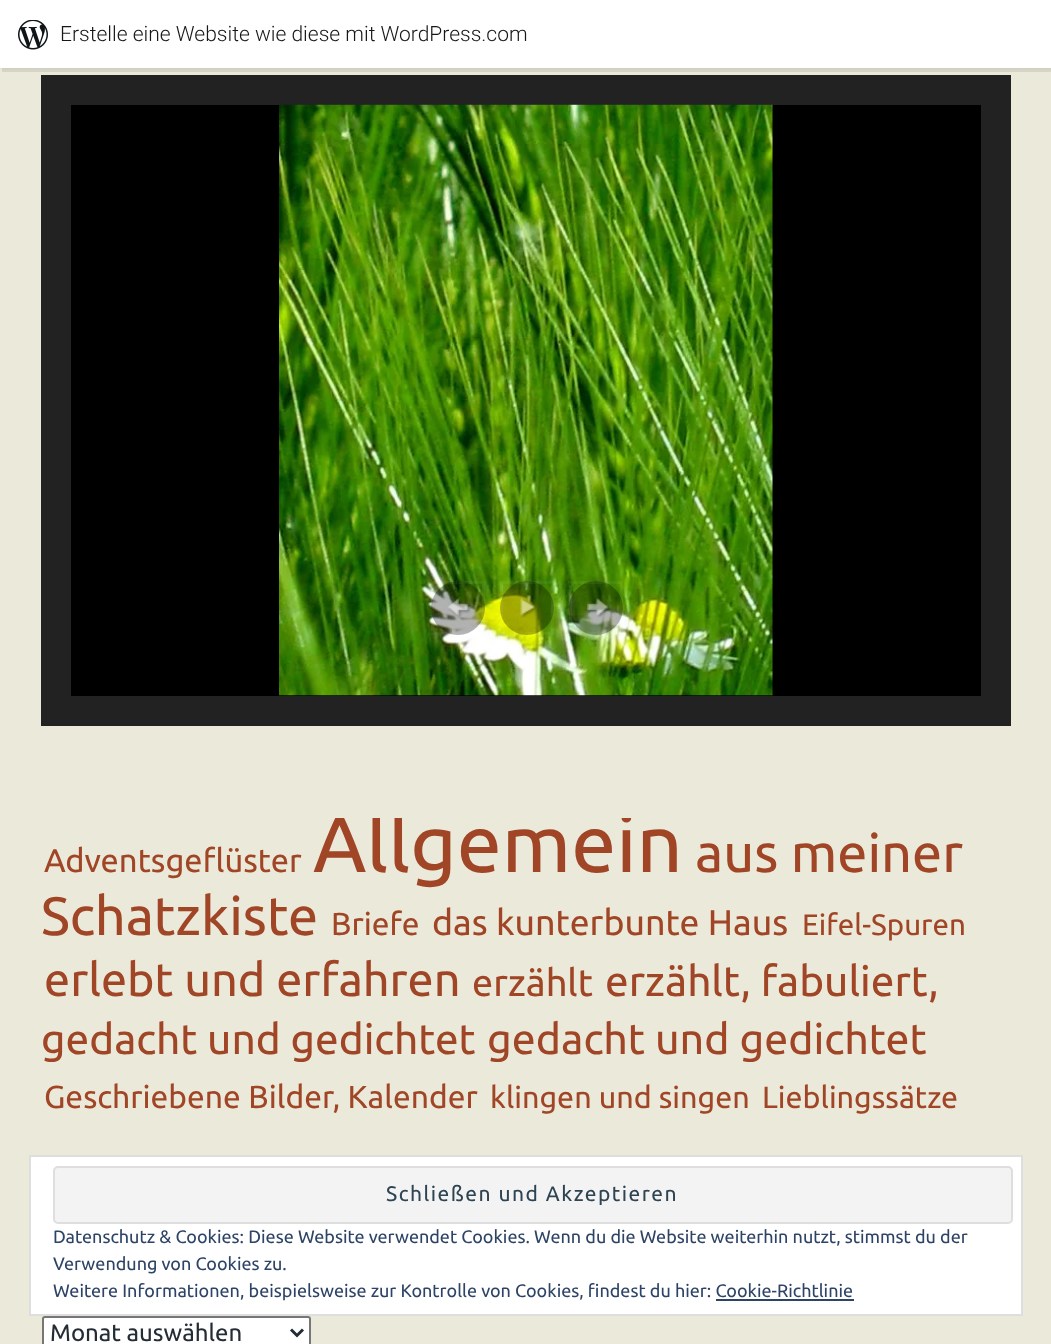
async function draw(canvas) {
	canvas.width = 1051;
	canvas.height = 1344;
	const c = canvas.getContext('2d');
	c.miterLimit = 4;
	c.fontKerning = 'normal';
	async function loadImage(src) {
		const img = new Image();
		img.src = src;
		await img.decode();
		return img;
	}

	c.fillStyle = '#ebe9da';
	c.fillRect(0, 0, 1051, 1344);
	c.fillStyle = '#0000000d';
	c.filter = 'blur(1.5px)';
	c.beginPath();
	c.rect(0, 2, 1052, 67);
	c.fill();
	c.filter = 'none';
	c.fillStyle = '#00000014';
	c.beginPath();
	c.moveTo(2, 68);
	c.lineTo(2, 72);
	c.lineTo(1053, 72);
	c.lineTo(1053, 5);
	c.lineTo(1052, 5);
	c.lineTo(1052, 68);
	c.closePath();
	c.fill();
	c.fillStyle = '#fff';
	c.fillRect(0, 0, 1051, 68);
	c.drawImage(await loadImage('img1.png'), 18, 20, 30, 30);
	c.font = '300 21px Roboto';
	c.fillStyle = '#171717';
	c.fillText('Erstelle eine Website wie diese mit WordPress.com', 60, 41);
	c.beginPath();
	c.rect(56, 90, 940, 621);
	c.strokeStyle = '#222';
	c.lineWidth = 30;
	c.stroke();
	c.fillStyle = '#000';
	c.fillRect(71, 105, 910, 591);
	c.drawImage(await loadImage('img2.png'), 279, 104, 494, 592);
	c.fillStyle = '#0000004d';
	c.beginPath();
	c.arc(458, 608, 27, 0, 2 * Math.PI);
	c.fill();
	c.drawImage(await loadImage('img3.png'), 448, 598, 23, 20);
	c.strokeStyle = '#ffffff0d';
	c.lineWidth = 3;
	c.strokeRect(432.5, 582.5, 51, 51);
	c.beginPath();
	c.arc(527, 608, 27, 0, 2 * Math.PI);
	c.fill();
	c.drawImage(await loadImage('img4.png'), 520, 598, 17, 20);
	c.strokeRect(501.5, 582.5, 51, 51);
	c.beginPath();
	c.arc(596, 608, 27, 0, 2 * Math.PI);
	c.fill();
	c.drawImage(await loadImage('img5.png'), 587, 598, 23, 20);
	c.strokeRect(570.5, 582.5, 51, 51);
	c.font = '32.75px Ubuntu';
	c.fillStyle = '#a04526';
	c.fillText('Adventsgeflüster', 44, 872);
	c.save();
	c.beginPath();
	c.rect(41, 818, 970, 363);
	c.clip();
	c.font = '80.5px Ubuntu';
	c.fillText('Allgemein', 313, 872);
	c.restore();
	c.font = '54px Ubuntu';
	c.fillText('aus meiner', 695, 872);
	c.fillText('Schatzkiste', 41, 935);
	c.font = '31.8px Ubuntu';
	c.fillText('Briefe', 331, 935);
	c.font = '35.75px Ubuntu';
	c.fillText('das kunterbunte Haus', 432, 935);
	c.font = '29.5px Ubuntu';
	c.fillText('Eifel-Spuren', 802, 935);
	c.font = '46.75px Ubuntu';
	c.fillText('erlebt und erfahren', 44, 996);
	c.font = '38px Ubuntu';
	c.fillText('erzählt', 472, 996);
	c.font = '42.4px Ubuntu';
	c.fillText('erzählt, fabuliert,', 605, 996);
	c.fillText('gedacht und gedichtet', 41, 1054);
	c.font = '42.9px Ubuntu';
	c.fillText('gedacht und gedichtet', 487, 1054);
	c.font = '31.8px Ubuntu';
	c.fillText('Geschriebene Bilder, Kalender', 44, 1108);
	c.font = '30.5px Ubuntu';
	c.fillText('klingen und singen', 490, 1108);
	c.fillText('Lieblingssätze', 762, 1108);
	c.fillStyle = '#fff';
	c.beginPath();
	c.roundRect(43, 1317, 267, 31, 2);
	c.fill();
	c.strokeStyle = '#767676';
	c.lineWidth = 2;
	c.stroke();
	c.beginPath();
	c.moveTo(291, 1329.5);
	c.lineTo(297, 1335.5);
	c.lineTo(303, 1329.5);
	c.strokeStyle = '#242d36';
	c.lineWidth = 3;
	c.stroke();
	c.font = '24px Ubuntu';
	c.fillStyle = '#242d36';
	c.fillText('Monat auswählen', 50, 1341);
	c.fillStyle = '#fff';
	c.beginPath();
	c.rect(30, 1156, 992, 159);
	c.fill();
	c.strokeStyle = '#dedede';
	c.lineWidth = 2;
	c.stroke();
	c.fillStyle = '#f3f3f3';
	c.beginPath();
	c.roundRect(54, 1167, 958, 56, 4);
	c.fill();
	c.stroke();
	c.letterSpacing = '1.5px';
	c.font = '21px Ubuntu';
	c.fillStyle = '#2e4453';
	c.fillText('Schließen und Akzeptieren', 386, 1201);
	c.letterSpacing = '0px';
	c.font = '18px Ubuntu';
	c.fillStyle = '#2e4467';
	for (const [text, x, y] of [
		['Datenschutz & Cookies: Diese Website verwendet Cookies. Wenn du die Website weiterhin nutzt, stimmst du der', 53, 1243],
		['Verwendung von Cookies zu.', 53, 1270],
		['Weitere Informationen, beispielsweise zur Kontrolle von Cookies, findest du hier: Cookie-Richtlinie', 53, 1297],
	]) {
		c.fillText(text, x, y);
	}
	c.fillRect(716, 1299, 138, 2);
}

draw(document.querySelector('canvas'));
